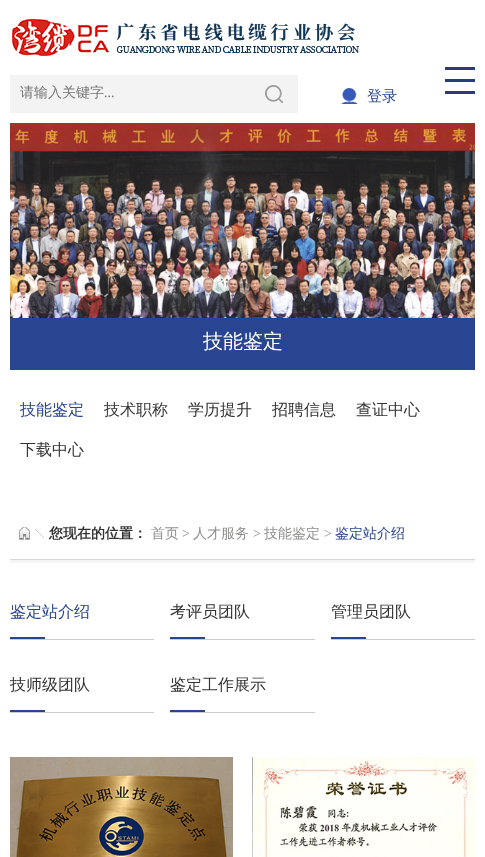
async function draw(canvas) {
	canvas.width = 485;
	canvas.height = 857;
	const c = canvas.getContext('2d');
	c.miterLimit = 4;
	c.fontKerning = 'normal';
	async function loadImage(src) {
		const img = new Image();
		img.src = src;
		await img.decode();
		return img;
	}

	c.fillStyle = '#fff';
	c.fillRect(0, 0, 485, 857);
	c.drawImage(await loadImage('img1.png'), 12, 19, 347, 37);
	c.fillStyle = '#f3f3f3';
	c.fillRect(10, 75, 288, 38);
	c.font = '500 14px WenQuanYi Zen Hei';
	c.fillStyle = '#757575';
	c.fillText('请输入关键字', 20, 97);
	c.font = '14px Liberation Serif';
	c.fillText('...', 104, 97);
	c.drawImage(await loadImage('img2.png'), 265, 85, 18, 18);
	c.drawImage(await loadImage('img3.png'), 341, 88, 17, 16);
	c.font = '500 15px WenQuanYi Zen Hei';
	c.fillStyle = '#294490';
	c.fillText('登录', 367, 101);
	for (const [x, y, w, h, color] of [
		[445, 79, 30, 3, '#263d7b'],
		[445, 67, 30, 3, '#263d7b'],
		[445, 91, 30, 3, '#263d7b'],
	]) {
		c.fillStyle = color;
		c.fillRect(x, y, w, h);
	}
	c.drawImage(await loadImage('img4.png'), 10, 123, 465, 195);
	c.fillStyle = '#294490';
	c.fillRect(10, 318, 465, 52);
	c.font = '500 20px WenQuanYi Zen Hei';
	c.fillStyle = '#fff';
	c.fillText('技能鉴定', 203, 348);
	c.font = '500 16px WenQuanYi Zen Hei';
	c.fillStyle = '#294490';
	c.fillText('技能鉴定', 20, 415);
	c.fillStyle = '#333';
	for (const [text, x, y] of [
		['技术职称', 104, 415],
		['学历提升', 188, 415],
		['招聘信息', 272, 415],
		['查证中心', 356, 415],
		['下载中心', 20, 455],
	]) {
		c.fillText(text, x, y);
	}
	c.fillStyle = '#f5f5f5';
	c.fillRect(10, 560, 465, 3);
	c.drawImage(await loadImage('img5.png'), 19, 527, 25, 13);
	c.font = 'bold 14px WenQuanYi Zen Hei';
	c.fillStyle = '#333';
	c.fillText('您现在的位置：', 49, 538);
	c.font = '500 14px WenQuanYi Zen Hei';
	c.fillStyle = '#8e8e8d';
	c.fillText('首页', 151, 538);
	c.font = '14px Liberation Serif';
	c.fillText('>', 182, 538);
	c.font = '500 14px WenQuanYi Zen Hei';
	c.fillText('人才服务', 193, 538);
	c.font = '14px Liberation Serif';
	c.fillText('>', 253, 538);
	c.font = '500 14px WenQuanYi Zen Hei';
	c.fillText('技能鉴定', 264, 538);
	c.font = '14px Liberation Serif';
	c.fillText('>', 324, 538);
	c.font = '500 14px WenQuanYi Zen Hei';
	c.fillStyle = '#294490';
	c.fillText('鉴定站介绍', 335, 538);
	c.fillStyle = '#d7d7d7';
	c.fillRect(10, 559, 465, 1);
	c.fillStyle = '#ccc';
	c.fillRect(10, 639, 144, 1);
	c.font = '500 16px WenQuanYi Zen Hei';
	c.fillStyle = '#294490';
	c.fillText('鉴定站介绍', 10, 617);
	c.fillRect(10, 637, 35, 2);
	c.fillStyle = '#ccc';
	c.fillRect(170, 639, 145, 1);
	c.fillStyle = '#333';
	c.fillText('考评员团队', 170, 617);
	c.fillStyle = '#294490';
	c.fillRect(170, 637, 35, 2);
	c.fillStyle = '#ccc';
	c.fillRect(331, 639, 144, 1);
	c.fillStyle = '#333';
	c.fillText('管理员团队', 331, 617);
	c.fillStyle = '#294490';
	c.fillRect(331, 637, 35, 2);
	c.fillStyle = '#ccc';
	c.fillRect(10, 712, 144, 1);
	c.fillStyle = '#333';
	c.fillText('技师级团队', 10, 690);
	c.fillStyle = '#294490';
	c.fillRect(10, 710, 35, 2);
	c.fillStyle = '#ccc';
	c.fillRect(170, 712, 145, 1);
	c.fillStyle = '#333';
	c.fillText('鉴定工作展示', 170, 690);
	c.fillStyle = '#294490';
	c.fillRect(170, 710, 35, 2);
	c.drawImage(await loadImage('img6.png'), 10, 757, 223, 100);
	c.drawImage(await loadImage('img7.png'), 252, 757, 223, 100);
}

draw(document.querySelector('canvas'));
